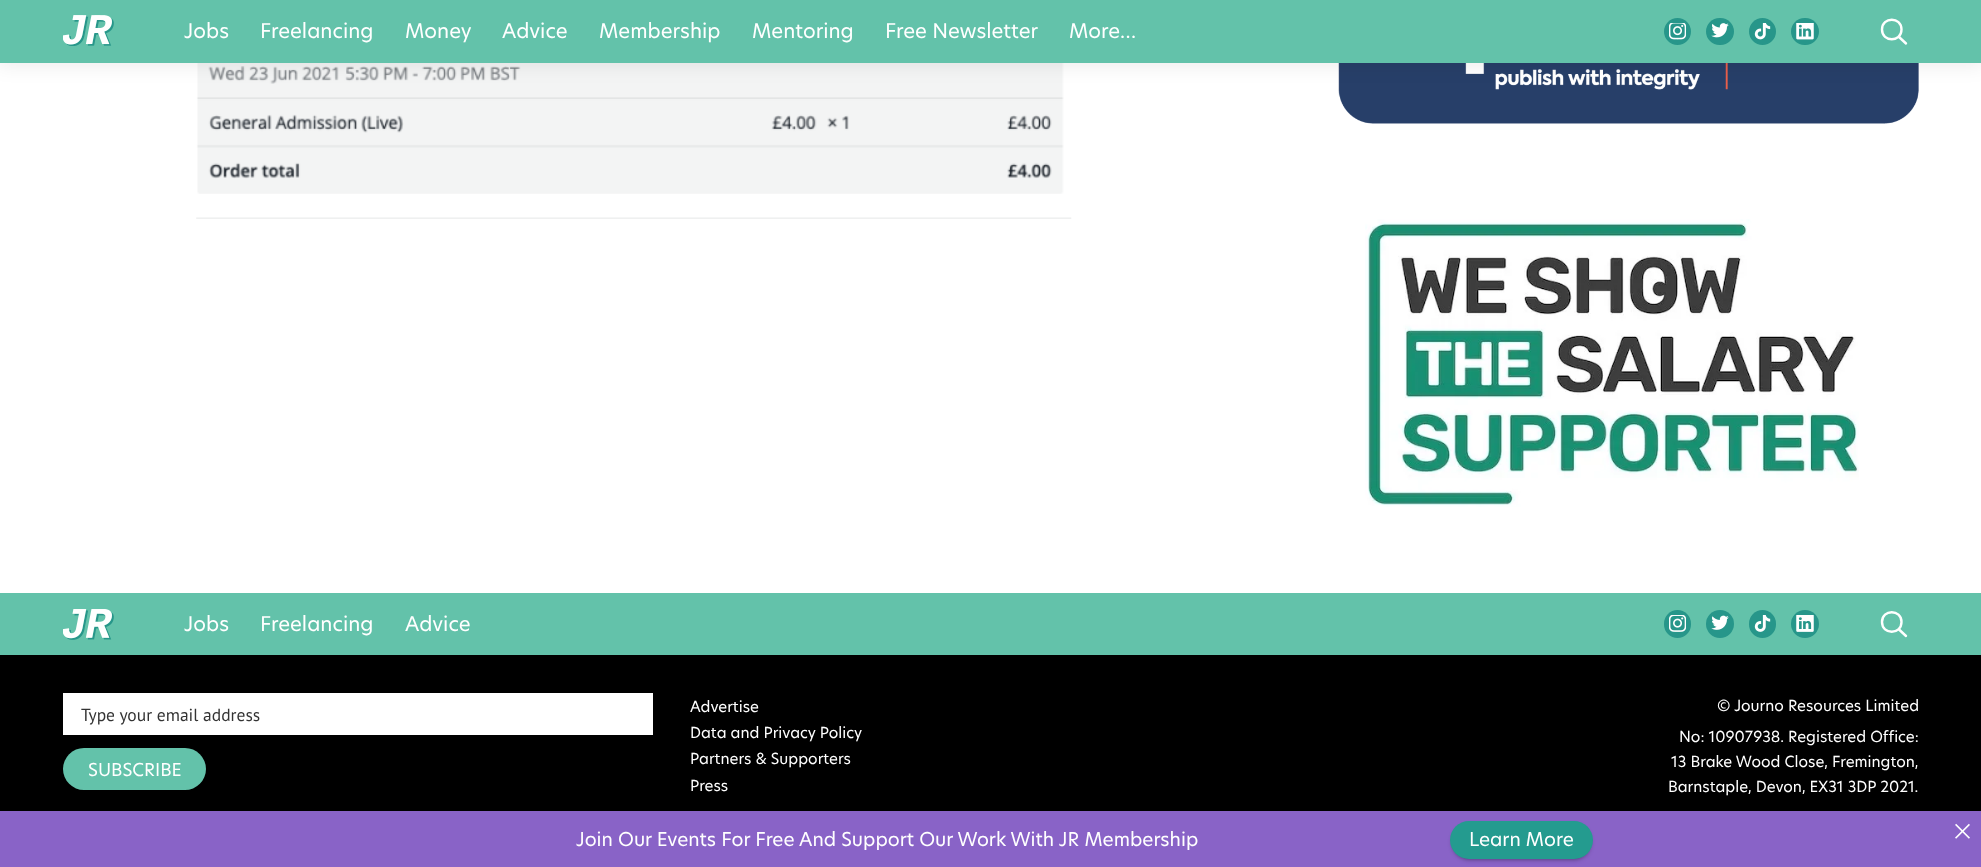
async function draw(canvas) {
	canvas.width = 1981;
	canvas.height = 867;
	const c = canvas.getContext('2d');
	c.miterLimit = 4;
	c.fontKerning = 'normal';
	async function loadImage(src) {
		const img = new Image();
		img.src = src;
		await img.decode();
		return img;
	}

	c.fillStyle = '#fff';
	c.fillRect(0, 0, 1981, 867);
	c.drawImage(await loadImage('img6.png'), 196, 63, 876, 156);
	c.drawImage(await loadImage('img7.png'), 1338, 63, 581, 61);
	c.fillStyle = '#00000014';
	c.filter = 'blur(9.5px)';
	c.beginPath();
	c.rect(-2, -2, 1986, 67);
	c.fill();
	c.filter = 'none';
	c.fillStyle = '#63c2aa';
	c.fillRect(0, 0, 1981, 63);
	c.drawImage(await loadImage('img1.png'), 63, 15, 51, 31);
	c.font = '20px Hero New';
	c.fillStyle = '#fff';
	for (const [text, x, y] of [
		['Jobs', 184, 38],
		['Freelancing', 260, 38],
		['Money', 405, 38],
		['Advice', 502, 38],
		['Membership', 599, 38],
		['Mentoring', 752, 38],
		['Free Newsletter', 885, 38],
		['More…', 1069, 38],
	]) {
		c.fillText(text, x, y);
	}
	c.beginPath();
	c.moveTo(1901.5, 29.5);
	c.bezierCurveTo(1901.5, 42.5, 1882, 42.5, 1882, 29.5);
	c.bezierCurveTo(1882, 16.5, 1901.5, 16.5, 1901.5, 29.5);
	c.closePath();
	c.moveTo(1906, 43.5);
	c.lineTo(1898.5, 36.5);
	c.strokeStyle = '#fff';
	c.lineWidth = 2.4;
	c.lineCap = 'round';
	c.stroke();
	c.fillStyle = '#27968a';
	c.beginPath();
	c.arc(1677.5, 31.5, 13.5, 0, 2 * Math.PI);
	c.fill();
	c.drawImage(await loadImage('img2.png'), 1669, 23, 17, 17);
	c.beginPath();
	c.roundRect(1706, 18, 28, 27, 13.5);
	c.fill();
	c.drawImage(await loadImage('img3.png'), 1711, 23, 18, 15);
	c.beginPath();
	c.arc(1762.5, 31.5, 13.5, 0, 2 * Math.PI);
	c.fill();
	c.drawImage(await loadImage('img4.png'), 1754, 23, 17, 17);
	c.beginPath();
	c.roundRect(1791, 18, 28, 27, 13.5);
	c.fill();
	c.drawImage(await loadImage('img5.png'), 1796, 23, 18, 17);
	c.drawImage(await loadImage('img8.png'), 1365, 219, 494, 288);
	c.fillStyle = '#63c2aa';
	c.fillRect(0, 593, 1981, 62);
	c.drawImage(await loadImage('img9.png'), 63, 609, 51, 31);
	c.fillStyle = '#fff';
	for (const [text, x, y] of [
		['Jobs', 184, 631],
		['Freelancing', 260, 631],
		['Advice', 405, 631],
	]) {
		c.fillText(text, x, y);
	}
	c.beginPath();
	c.moveTo(1901.5, 622);
	c.bezierCurveTo(1901.5, 635, 1882, 635, 1882, 622);
	c.bezierCurveTo(1882, 609, 1901.5, 609, 1901.5, 622);
	c.closePath();
	c.moveTo(1906, 636);
	c.lineTo(1898.5, 629);
	c.stroke();
	c.fillStyle = '#27968a';
	c.beginPath();
	c.roundRect(1664, 610, 27, 28, 13.5);
	c.fill();
	c.drawImage(await loadImage('img10.png'), 1669, 615, 17, 17);
	c.beginPath();
	c.arc(1720, 624, 14, 0, 2 * Math.PI);
	c.fill();
	c.drawImage(await loadImage('img11.png'), 1711, 615, 18, 15);
	c.beginPath();
	c.roundRect(1749, 610, 27, 28, 13.5);
	c.fill();
	c.drawImage(await loadImage('img12.png'), 1754, 615, 17, 17);
	c.beginPath();
	c.arc(1805, 624, 14, 0, 2 * Math.PI);
	c.fill();
	c.drawImage(await loadImage('img13.png'), 1796, 615, 18, 17);
	c.fillStyle = '#000';
	c.fillRect(0, 655, 1981, 156);
	c.fillStyle = '#fff';
	c.fillRect(63, 693, 590, 42);
	c.font = '17.5px PT Sans';
	c.fillStyle = '#333';
	c.fillText('Type your email address', 81, 721);
	c.fillStyle = '#63c2aa';
	c.beginPath();
	c.roundRect(63, 748, 143, 42, 21);
	c.fill();
	c.font = '17.5px Hero New';
	c.fillStyle = '#fff';
	c.fillText('SUBSCRIBE', 88, 776);
	c.font = '15px Hero New';
	for (const [text, x, y] of [
		['Advertise', 690, 712],
		['Data and Privacy Policy', 690, 738],
		['Partners & Supporters', 690, 764],
		['Press', 690, 791],
		['© Journo Resources Limited', 1717, 711],
		['No: 10907938. Registered Office:', 1679, 742],
		['13 Brake Wood Close, Fremington,', 1671, 767],
		['Barnstaple, Devon, EX31 3DP 2021.', 1668, 792],
	]) {
		c.fillText(text, x, y);
	}
	c.fillStyle = '#00000080';
	c.filter = 'blur(2.5px)';
	c.beginPath();
	c.rect(3, 811, 1976, 52);
	c.fill();
	c.filter = 'none';
	c.fillStyle = '#8963c7';
	c.fillRect(0, 811, 1981, 56);
	c.font = '18.75px Hero New';
	c.fillStyle = '#fff';
	c.fillText('Join Our Events For Free And Support Our Work With JR Membership', 576, 846);
	c.fillStyle = '#00000080';
	c.filter = 'blur(2.5px)';
	c.beginPath();
	c.roundRect(1453, 826, 137, 33, 16.5);
	c.fill();
	c.filter = 'none';
	c.fillStyle = '#249b8f';
	c.beginPath();
	c.roundRect(1450, 821, 143, 38, 19);
	c.fill();
	c.fillStyle = '#fff';
	c.fillText('Learn More', 1469, 846);
	c.drawImage(await loadImage('img14.png'), 1955, 823, 15, 16);
}

draw(document.querySelector('canvas'));
